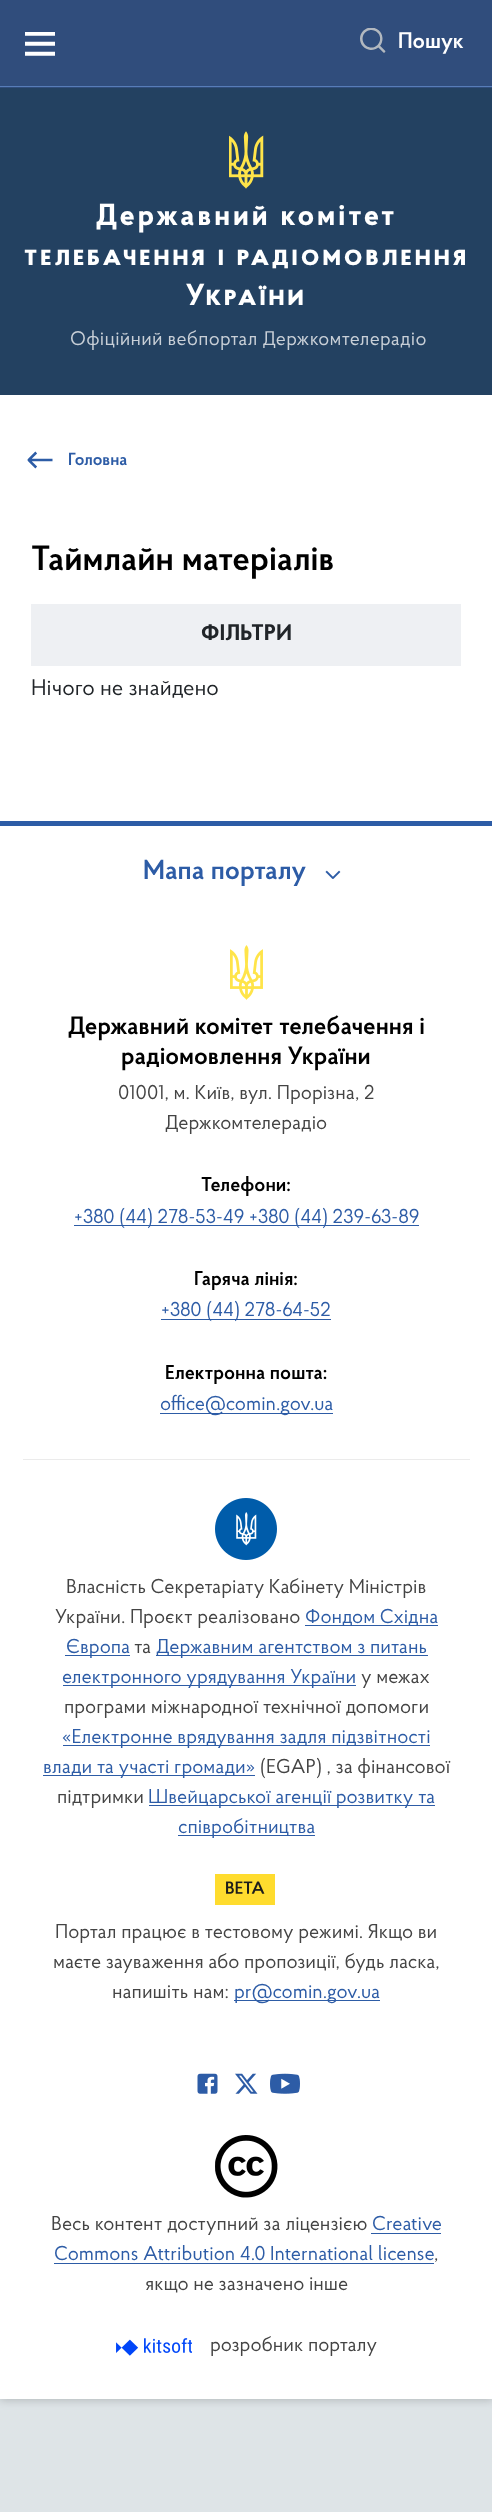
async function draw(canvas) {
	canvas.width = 492;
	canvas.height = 2512;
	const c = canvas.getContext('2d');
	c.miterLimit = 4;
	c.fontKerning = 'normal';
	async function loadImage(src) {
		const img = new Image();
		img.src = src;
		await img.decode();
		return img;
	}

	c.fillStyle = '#dee4e7';
	c.fillRect(0, 0, 492, 2512);
	c.fillStyle = '#00000033';
	c.filter = 'blur(5px)';
	c.beginPath();
	c.rect(0, 1, 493, 2399);
	c.fill();
	c.filter = 'none';
	for (const [x, y, w, h, color] of [
		[0, 395, 492, 2004, '#fff'],
		[0, 88, 492, 307, '#234161'],
		[0, 0, 492, 88, '#304d7c'],
		[0, 86, 492, 1, '#577db8'],
	]) {
		c.fillStyle = color;
		c.fillRect(x, y, w, h);
	}
	c.drawImage(await loadImage('img1.png'), 25, 32, 30, 24);
	c.drawImage(await loadImage('img2.png'), 360, 28, 26, 25);
	c.font = '600 22.5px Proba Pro';
	c.fillStyle = '#fff';
	c.fillText('Пошук', 398, 48);
	c.drawImage(await loadImage('img3.png'), 229, 131, 35, 58);
	c.letterSpacing = '3px';
	c.font = 'bold 30.4px Proba Pro';
	c.fillText('Державний комітет', 96, 225);
	c.font = 'bold 30.4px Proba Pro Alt';
	c.fillText('телебачення і радіомовлення', 24, 265);
	c.fillText('України', 186, 305);
	c.letterSpacing = '0.25px';
	c.font = '19.75px Proba Pro';
	c.fillStyle = '#c8cfd7';
	c.fillText('Офіційний вебпортал Держкомтелерадіо', 70, 345);
	c.drawImage(await loadImage('img4.png'), 27, 451, 26, 18);
	c.letterSpacing = '0px';
	c.font = '600 17.5px Proba Pro';
	c.fillStyle = '#2d5ca6';
	c.fillText('Головна', 68, 465);
	c.font = '600 35px Proba Pro';
	c.fillStyle = '#000';
	c.fillText('Таймлайн матеріалів', 31, 570);
	c.fillStyle = '#eef0f3';
	c.fillRect(31, 604, 430, 62);
	c.letterSpacing = '0.25px';
	c.font = 'bold 22.5px Proba Pro';
	c.fillStyle = '#212529';
	c.fillText('ФІЛЬТРИ', 201, 640);
	c.letterSpacing = '0px';
	c.font = '22.5px Proba Pro';
	c.fillText('Нічого не знайдено', 31, 695);
	c.fillStyle = '#2d5ca6';
	c.fillRect(0, 821, 492, 5);
	c.fillStyle = '#ebebeb';
	c.fillRect(23, 1459, 447, 1);
	c.font = '600 27.5px Proba Pro';
	c.fillStyle = '#2d5ca6';
	c.fillText('Мапа порталу', 143, 879);
	c.drawImage(await loadImage('img5.png'), 325, 870, 16, 9);
	c.drawImage(await loadImage('img6.png'), 230, 945, 33, 55);
	c.font = '600 25px Proba Pro';
	c.fillStyle = '#000';
	c.fillText('Державний комітет телебачення і', 68, 1034);
	c.fillText('радіомовлення України', 121, 1064);
	c.font = '20px Proba Pro';
	c.fillStyle = '#444';
	c.fillText('01001, м. Київ, вул. Прорізна, 2', 118, 1099);
	c.fillText('Держкомтелерадіо', 165, 1129);
	c.font = '600 20px Proba Pro';
	c.fillStyle = '#000';
	c.fillText('Телефони:', 201, 1191);
	c.fillStyle = '#2d5ca6';
	c.fillRect(74, 1225, 345, 1);
	c.font = '20px Proba Pro';
	c.fillText('+380 (44) 278-53-49 +380 (44) 239-63-89', 74, 1223);
	c.font = '600 20px Proba Pro';
	c.fillStyle = '#000';
	c.fillText('Гаряча лінія:', 194, 1285);
	c.fillStyle = '#2d5ca6';
	c.fillRect(161, 1319, 170, 1);
	c.font = '20px Proba Pro';
	c.fillText('+380 (44) 278-64-52', 161, 1316);
	c.font = '600 20px Proba Pro';
	c.fillStyle = '#000';
	c.fillText('Електронна пошта:', 165, 1379);
	c.fillStyle = '#2d5ca6';
	c.fillRect(160, 1413, 173, 1);
	c.font = '20px Proba Pro';
	c.fillText('office@comin.gov.ua', 160, 1410);
	c.drawImage(await loadImage('img7.png'), 215, 1498, 62, 62);
	c.fillStyle = '#444';
	c.fillText('Власність Секретаріату Кабінету Міністрів', 66, 1593);
	c.fillText('України. Проєкт реалізовано', 55, 1623);
	c.fillStyle = '#2d5ca6';
	c.fillRect(305, 1625, 133, 1);
	c.fillText('Фондом Східна', 305, 1623);
	c.fillRect(65, 1655, 65, 1);
	c.fillText('Європа', 66, 1653);
	c.fillStyle = '#444';
	c.fillText('та', 134, 1653);
	c.fillStyle = '#2d5ca6';
	c.fillRect(156, 1655, 272, 1);
	c.fillText('Державним агентством з питань', 156, 1653);
	c.fillRect(63, 1685, 293, 1);
	c.fillText('електронного урядування України', 62, 1683);
	c.fillStyle = '#444';
	c.fillText('у межах', 361, 1683);
	c.fillText('програми міжнародної технічної допомоги', 64, 1713);
	c.fillStyle = '#2d5ca6';
	c.fillRect(63, 1745, 367, 1);
	c.fillText('«Електронне врядування задля підзвітності', 62, 1743);
	c.fillRect(43, 1775, 212, 1);
	c.fillText('влади та участі громади»', 43, 1773);
	c.fillStyle = '#444';
	c.fillText('(EGAP) , за фінансової', 260, 1773);
	c.fillText('підтримки', 57, 1803);
	c.fillStyle = '#2d5ca6';
	c.fillRect(149, 1805, 286, 1);
	c.fillText('Швейцарської агенції розвитку та', 148, 1803);
	c.fillRect(178, 1835, 137, 1);
	c.fillText('співробітництва', 178, 1833);
	c.drawImage(await loadImage('img8.png'), 215, 1874, 60, 31);
	c.fillStyle = '#444';
	for (const [text, x, y] of [
		['Портал працює в тестовому режимі. Якщо ви', 55, 1938],
		['маєте зауваження або пропозиції, будь ласка,', 53, 1968],
		['напишіть нам:', 112, 1998],
	]) {
		c.fillText(text, x, y);
	}
	c.fillStyle = '#2d5ca6';
	c.fillRect(234, 2000, 146, 1);
	c.fillText('pr@comin.gov.ua', 234, 1998);
	c.drawImage(await loadImage('img9.png'), 197, 2073, 21, 21);
	c.drawImage(await loadImage('img10.png'), 235, 2073, 23, 21);
	c.drawImage(await loadImage('img11.png'), 270, 2073, 30, 21);
	c.drawImage(await loadImage('img12.png'), 215, 2135, 63, 63);
	c.fillStyle = '#444';
	c.fillText('Весь контент доступний за ліцензією', 51, 2230);
	c.fillStyle = '#2d5ca6';
	c.fillText('Creative', 372, 2230);
	c.fillRect(371, 2233, 70, 1);
	c.fillText('Commons Attribution 4.0 International license', 54, 2260);
	c.fillRect(54, 2263, 380, 1);
	c.fillStyle = '#444';
	c.fillText(',', 434, 2260);
	c.fillText('якщо не зазначено інше', 145, 2290);
	c.drawImage(await loadImage('img13.png'), 116, 2338, 76, 18);
	c.fillText('розробник порталу', 210, 2351);
}

draw(document.querySelector('canvas'));
